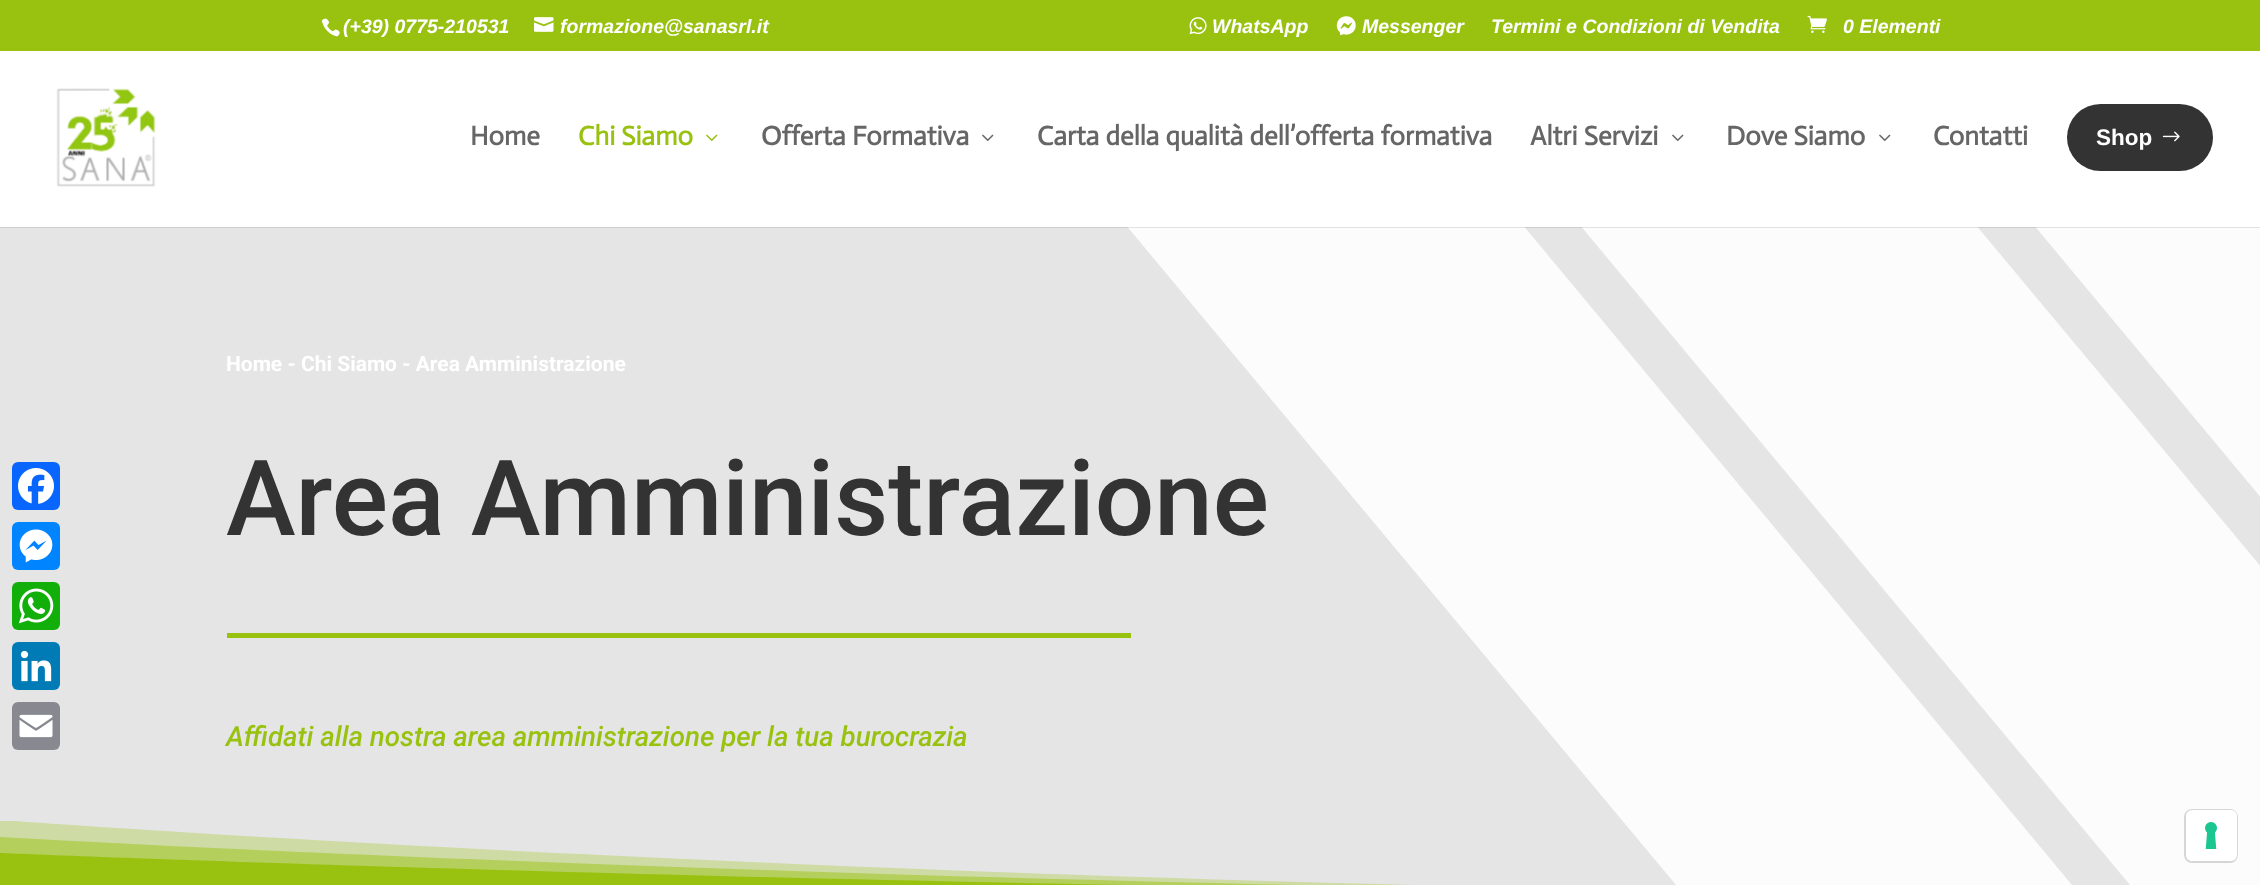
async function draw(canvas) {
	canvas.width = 2260;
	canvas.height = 885;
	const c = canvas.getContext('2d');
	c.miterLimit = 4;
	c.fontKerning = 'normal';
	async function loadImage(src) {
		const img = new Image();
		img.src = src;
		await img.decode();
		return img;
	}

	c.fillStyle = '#fcfcfc';
	c.fillRect(0, 0, 2260, 885);
	c.fillStyle = '#e5e5e5';
	c.beginPath();
	c.moveTo(-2, 224);
	c.lineTo(-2, 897);
	c.lineTo(1686, 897);
	c.lineTo(1125, 224);
	c.closePath();
	c.fill();
	c.fillStyle = '#0866ff';
	c.beginPath();
	c.roundRect(12, 462, 48, 48, 6);
	c.fill();
	c.drawImage(await loadImage('img1.png'), 18, 468, 36, 36);
	c.fillStyle = '#0084ff';
	c.beginPath();
	c.roundRect(12, 522, 48, 48, 6);
	c.fill();
	c.drawImage(await loadImage('img2.png'), 19, 529, 34, 34);
	c.fillStyle = '#12af0a';
	c.beginPath();
	c.roundRect(12, 582, 48, 48, 6);
	c.fill();
	c.drawImage(await loadImage('img3.png'), 18, 588, 36, 36);
	c.fillStyle = '#007bb5';
	c.beginPath();
	c.roundRect(12, 642, 48, 48, 6);
	c.fill();
	c.drawImage(await loadImage('img4.png'), 20, 650, 32, 32);
	c.fillStyle = '#888990';
	c.beginPath();
	c.roundRect(12, 702, 48, 48, 6);
	c.fill();
	c.drawImage(await loadImage('img5.png'), 19, 714, 34, 24);
	c.fillStyle = '#99c210';
	c.fillRect(0, 0, 2260, 51);
	c.drawImage(await loadImage('img6.png'), 321, 18, 19, 19);
	c.font = 'italic bold 19.5px Liberation Sans';
	c.fillStyle = '#fff';
	c.fillText('(+39) 0775-210531', 343, 33);
	c.drawImage(await loadImage('img7.png'), 534, 17, 20, 15);
	c.fillText('formazione@sanasrl.it', 560, 33);
	c.drawImage(await loadImage('img8.png'), 1189, 17, 18, 18);
	c.fillText('WhatsApp', 1212, 33);
	c.drawImage(await loadImage('img9.png'), 1336, 16, 20, 20);
	c.fillText('Messenger', 1362, 33);
	c.fillText('Termini e Condizioni di Vendita', 1491, 33);
	c.drawImage(await loadImage('img10.png'), 1807, 15, 20, 18);
	c.fillText('0 Elementi', 1843, 33);
	c.fillStyle = '#e5e5e5';
	c.beginPath();
	c.moveTo(1522, 224);
	c.lineTo(2082, 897);
	c.lineTo(2140, 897);
	c.lineTo(1579, 224);
	c.closePath();
	c.fill();
	c.beginPath();
	c.moveTo(2033, 224);
	c.lineTo(1975, 224);
	c.lineTo(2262, 568);
	c.lineTo(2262, 499);
	c.closePath();
	c.fill();
	c.fillStyle = '#0000001a';
	c.beginPath();
	c.moveTo(0, 226);
	c.lineTo(0, 228);
	c.lineTo(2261, 228);
	c.lineTo(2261, 53);
	c.lineTo(2260, 53);
	c.lineTo(2260, 226);
	c.closePath();
	c.fill();
	c.fillStyle = '#fff';
	c.fillRect(0, 51, 2260, 176);
	c.drawImage(await loadImage('img11.png'), 56, 88, 100, 99);
	c.font = 'bold 27px Actor';
	c.fillStyle = '#666';
	c.fillText('Home', 470, 145);
	c.fillStyle = '#99c210';
	c.fillText('Chi Siamo', 578, 145);
	c.drawImage(await loadImage('img12.png'), 706, 134, 12, 7);
	c.fillStyle = '#666';
	c.fillText('Offerta Formativa', 761, 145);
	c.drawImage(await loadImage('img13.png'), 982, 134, 12, 7);
	c.fillText('Carta della qualità dell’offerta formativa', 1037, 145);
	c.fillText('Altri Servizi', 1530, 145);
	c.drawImage(await loadImage('img13.png'), 1672, 134, 12, 7);
	c.fillText('Dove Siamo', 1726, 145);
	c.drawImage(await loadImage('img13.png'), 1879, 134, 12, 7);
	c.fillText('Contatti', 1933, 145);
	c.fillStyle = '#333';
	c.beginPath();
	c.roundRect(2067, 104, 146, 67, 33.5);
	c.fill();
	c.font = 'bold 22.5px Liberation Sans';
	c.fillStyle = '#fff';
	c.fillText('Shop', 2096, 145);
	c.drawImage(await loadImage('img14.png'), 2162, 131, 18, 11);
	c.font = 'bold 21px Roboto';
	c.fillText('Home - Chi Siamo - Area Amministrazione', 226, 371);
	c.font = '500 105px Roboto';
	c.fillStyle = '#333';
	c.fillText('Area Amministrazione', 226, 535);
	c.fillStyle = '#99c210';
	c.fillRect(227, 633, 904, 5);
	c.font = 'italic 500 27.75px Roboto';
	c.fillText('Affidati alla nostra area amministrazione per la tua burocrazia', 226, 746);
	c.save();
	c.beginPath();
	c.rect(0, 821, 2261, 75);
	c.clip();
	c.fillStyle = '#cedba5';
	c.beginPath();
	c.moveTo(0, 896);
	c.lineTo(2260, 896);
	c.bezierCurveTo(1012, 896, 0, 820, 0, 820);
	c.closePath();
	c.fill();
	c.restore();
	c.fillStyle = '#b4cf5b';
	c.beginPath();
	c.moveTo(0, 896);
	c.lineTo(2260, 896);
	c.bezierCurveTo(1012, 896, 0, 837, 0, 837);
	c.closePath();
	c.fill();
	c.fillStyle = '#99c210';
	c.beginPath();
	c.moveTo(0, 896);
	c.lineTo(2260, 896);
	c.bezierCurveTo(1012, 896, 0, 853, 0, 853);
	c.closePath();
	c.fill();
	c.beginPath();
	c.roundRect(2185, 810, 52, 52, 7);
	c.strokeStyle = '#d6d6d6';
	c.lineWidth = 2;
	c.stroke();
	c.fillStyle = '#fff';
	c.beginPath();
	c.roundRect(2186, 810, 51, 51, 6);
	c.fill();
	c.drawImage(await loadImage('img15.png'), 2205, 822, 12, 27);
}

draw(document.querySelector('canvas'));
